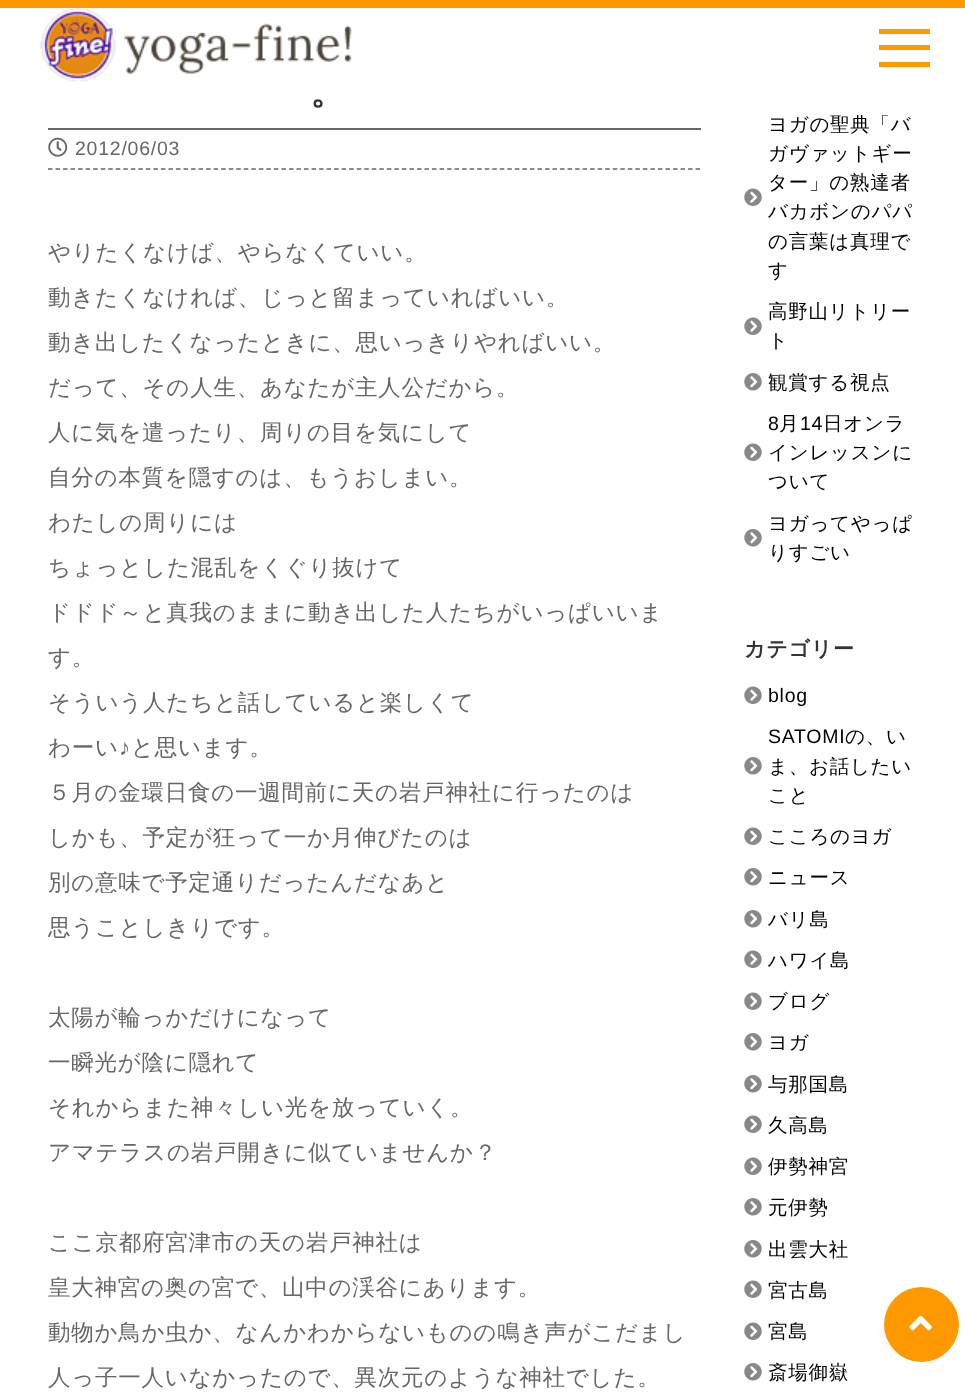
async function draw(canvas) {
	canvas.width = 965;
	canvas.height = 1397;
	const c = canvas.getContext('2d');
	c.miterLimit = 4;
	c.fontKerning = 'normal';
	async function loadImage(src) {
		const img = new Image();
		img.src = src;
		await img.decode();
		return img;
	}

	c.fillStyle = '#fff';
	c.fillRect(0, 0, 965, 1397);
	c.fillStyle = '#fe9900';
	c.fillRect(0, 0, 965, 8);
	c.drawImage(await loadImage('img1.png'), 40, 7, 312, 75);
	for (const [x, y, w, h, color] of [
		[879, 29, 51, 5, '#fe9900'],
		[879, 45, 51, 5, '#fe9900'],
		[879, 62, 51, 5, '#fe9900'],
	]) {
		c.fillStyle = color;
		c.fillRect(x, y, w, h);
	}
	c.letterSpacing = '0.75px';
	c.font = 'bold 36px WenQuanYi Zen Hei';
	c.fillStyle = '#333';
	c.fillText('。', 310, 104);
	c.fillStyle = '#666';
	c.fillRect(48, 128, 653, 2);
	c.beginPath();
	c.moveTo(48, 169);
	c.lineTo(700.5, 169);
	c.strokeStyle = '#666';
	c.lineWidth = 1.5;
	c.setLineDash([4.5, 3.03]);
	c.stroke();
	c.drawImage(await loadImage('img2.png'), 48, 137, 20, 20);
	c.font = '19.5px Liberation Sans';
	c.fillText('2012/06/03', 75, 155);
	c.font = '500 22.5px WenQuanYi Zen Hei';
	for (const [text, x, y] of [
		['やりたくなけば、やらなくていい。', 48, 260],
		['動きたくなければ、じっと留まっていればいい。', 48, 305],
		['動き出したくなったときに、思いっきりやればいい。', 48, 350],
		['だって、その人生、あなたが主人公だから。', 48, 395],
		['人に気を遣ったり、周りの目を気にして', 48, 440],
		['自分の本質を隠すのは、もうおしまい。', 48, 485],
		['わたしの周りには', 48, 530],
		['ちょっとした混乱をくぐり抜けて', 48, 575],
		['ドドド～と真我のままに動き出した人たちがいっぱいいま', 48, 620],
		['す。', 48, 665],
		['そういう人たちと話していると楽しくて', 48, 710],
		['わーい', 48, 755],
	]) {
		c.fillText(text, x, y);
	}
	c.font = '22.5px Liberation Sans';
	c.fillText('♪', 119, 755);
	c.font = '500 22.5px WenQuanYi Zen Hei';
	for (const [text, x, y] of [
		['と思います。', 131, 755],
		['５月の金環日食の一週間前に天の岩戸神社に行ったのは', 48, 800],
		['しかも、予定が狂って一か月伸びたのは', 48, 845],
		['別の意味で予定通りだったんだなあと', 48, 890],
		['思うことしきりです。', 48, 935],
		['太陽が輪っかだけになって', 48, 1025],
		['一瞬光が陰に隠れて', 48, 1070],
		['それからまた神々しい光を放っていく。', 48, 1115],
		['アマテラスの岩戸開きに似ていませんか？', 48, 1160],
		['ここ京都府宮津市の天の岩戸神社は', 48, 1250],
		['皇大神宮の奥の宮で、山中の渓谷にあります。', 48, 1295],
		['動物か鳥か虫か、なんかわからないものの鳴き声がこだまし', 48, 1340],
		['人っ子一人いなかったので、異次元のような神社でした。', 48, 1385],
	]) {
		c.fillText(text, x, y);
	}
	c.font = '500 19.5px WenQuanYi Zen Hei';
	c.fillStyle = '#000';
	for (const [text, x, y] of [
		['ヨガの聖典「バ', 768, 131],
		['ガヴァットギー', 768, 160],
		['ター」の熟達者', 768, 189],
	]) {
		c.fillText(text, x, y);
	}
	c.drawImage(await loadImage('img3.png'), 744, 188, 18, 18);
	for (const [text, x, y] of [
		['バカボンのパパ', 768, 218],
		['の言葉は真理で', 768, 248],
		['す', 768, 277],
		['高野山リトリー', 768, 318],
	]) {
		c.fillText(text, x, y);
	}
	c.drawImage(await loadImage('img3.png'), 744, 317, 18, 18);
	c.fillText('ト', 768, 347);
	c.drawImage(await loadImage('img4.png'), 744, 373, 18, 18);
	c.fillText('観賞する視点', 768, 389);
	c.font = '19.5px Liberation Sans';
	c.fillText('8', 768, 430);
	c.font = '500 19.5px WenQuanYi Zen Hei';
	c.fillText('月', 779, 430);
	c.font = '19.5px Liberation Sans';
	c.fillText('14', 800, 430);
	c.font = '500 19.5px WenQuanYi Zen Hei';
	c.fillText('日オンラ', 823, 430);
	c.drawImage(await loadImage('img3.png'), 744, 443, 18, 18);
	for (const [text, x, y] of [
		['インレッスンに', 768, 459],
		['ついて', 768, 488],
		['ヨガってやっぱ', 768, 530],
	]) {
		c.fillText(text, x, y);
	}
	c.drawImage(await loadImage('img4.png'), 744, 529, 18, 18);
	c.fillText('りすごい', 768, 559);
	c.font = 'bold 21px WenQuanYi Zen Hei';
	c.fillStyle = '#333';
	c.fillText('カテゴリー', 744, 656);
	c.drawImage(await loadImage('img3.png'), 744, 686, 18, 18);
	c.font = '19.5px Liberation Sans';
	c.fillStyle = '#000';
	c.fillText('blog', 768, 702);
	c.fillText('SATOMI', 768, 743);
	c.font = '500 19.5px WenQuanYi Zen Hei';
	c.fillText('の、い', 845, 743);
	c.drawImage(await loadImage('img4.png'), 744, 757, 18, 18);
	c.fillText('ま、お話したい', 768, 773);
	c.fillText('こと', 768, 802);
	c.drawImage(await loadImage('img3.png'), 744, 827, 18, 18);
	c.fillText('こころのヨガ', 768, 843);
	c.drawImage(await loadImage('img4.png'), 744, 868, 18, 18);
	c.fillText('ニュース', 768, 884);
	c.drawImage(await loadImage('img4.png'), 744, 910, 18, 18);
	c.fillText('バリ島', 768, 926);
	c.drawImage(await loadImage('img3.png'), 744, 950, 18, 18);
	c.fillText('ハワイ島', 768, 967);
	c.drawImage(await loadImage('img3.png'), 744, 992, 18, 18);
	c.fillText('ブログ', 768, 1008);
	c.drawImage(await loadImage('img4.png'), 744, 1033, 18, 18);
	c.fillText('ヨガ', 768, 1049);
	c.drawImage(await loadImage('img4.png'), 744, 1075, 18, 18);
	c.fillText('与那国島', 768, 1091);
	c.drawImage(await loadImage('img3.png'), 744, 1115, 18, 18);
	c.fillText('久高島', 768, 1132);
	c.drawImage(await loadImage('img3.png'), 744, 1157, 18, 18);
	c.fillText('伊勢神宮', 768, 1173);
	c.drawImage(await loadImage('img4.png'), 744, 1198, 18, 18);
	c.fillText('元伊勢', 768, 1214);
	c.drawImage(await loadImage('img4.png'), 744, 1240, 18, 18);
	c.fillText('出雲大社', 768, 1256);
	c.drawImage(await loadImage('img3.png'), 744, 1280, 18, 18);
	c.fillText('宮古島', 768, 1297);
	c.drawImage(await loadImage('img3.png'), 744, 1322, 18, 18);
	c.fillText('宮島', 768, 1338);
	c.drawImage(await loadImage('img4.png'), 744, 1363, 18, 18);
	c.fillText('斎場御嶽', 768, 1379);
	c.fillStyle = '#fe9900';
	c.beginPath();
	c.arc(921.5, 1324.5, 37.5, 0, 2 * Math.PI);
	c.fill();
	c.drawImage(await loadImage('img5.png'), 909, 1315, 23, 16);
}

draw(document.querySelector('canvas'));
